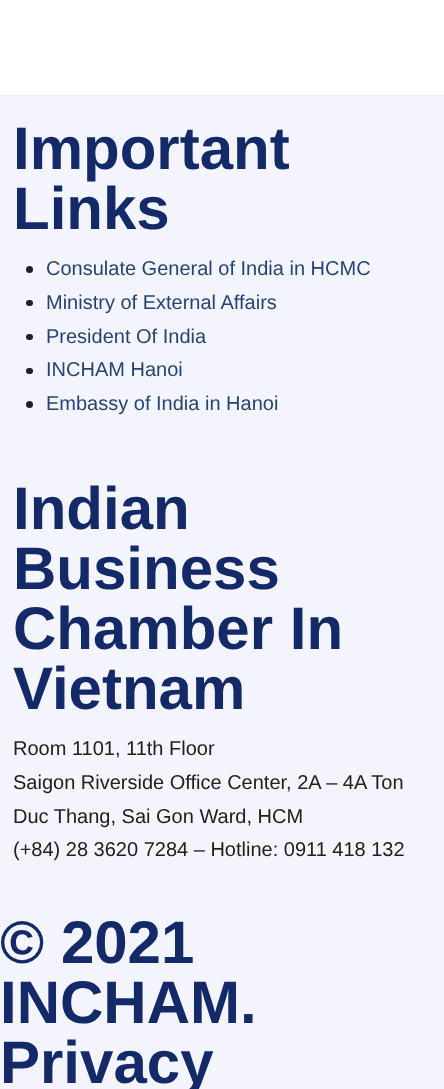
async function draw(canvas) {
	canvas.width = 444;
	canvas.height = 1089;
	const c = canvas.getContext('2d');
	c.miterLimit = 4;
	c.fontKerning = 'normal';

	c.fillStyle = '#f4f5fc';
	c.fillRect(0, 0, 444, 1089);
	c.fillStyle = '#ecedf5';
	c.fillRect(0, 95, 444, 1);
	c.fillStyle = '#fff';
	c.fillRect(0, 0, 444, 95);
	c.font = 'bold 60px Liberation Sans';
	c.fillStyle = '#142968';
	c.fillText('Important', 13, 169);
	c.fillText('Links', 13, 229);
	c.fillStyle = '#202020';
	c.beginPath();
	c.arc(29.5, 269.5, 3.5, 0, 2 * Math.PI);
	c.fill();
	c.font = '20px Liberation Sans';
	c.fillStyle = '#264472';
	c.fillText('Consulate General of India in HCMC', 46, 275);
	c.fillStyle = '#202020';
	c.beginPath();
	c.roundRect(26, 300, 7, 6, 3);
	c.fill();
	c.fillStyle = '#264472';
	c.fillText('Ministry of External Affairs', 46, 309);
	c.fillStyle = '#202020';
	c.beginPath();
	c.roundRect(26, 334, 7, 6, 3);
	c.fill();
	c.fillStyle = '#264472';
	c.fillText('President Of India', 46, 343);
	c.fillStyle = '#202020';
	c.beginPath();
	c.roundRect(26, 368, 7, 6, 3);
	c.fill();
	c.fillStyle = '#264472';
	c.fillText('INCHAM Hanoi', 46, 376);
	c.fillStyle = '#202020';
	c.beginPath();
	c.arc(29.5, 404.5, 3.5, 0, 2 * Math.PI);
	c.fill();
	c.fillStyle = '#264472';
	c.fillText('Embassy of India in Hanoi', 46, 410);
	c.font = 'bold 60px Liberation Sans';
	c.fillStyle = '#142968';
	for (const [text, x, y] of [
		['Indian', 13, 529],
		['Business', 13, 589],
		['Chamber In', 13, 649],
		['Vietnam', 13, 709],
	]) {
		c.fillText(text, x, y);
	}
	c.font = '20px Liberation Sans';
	c.fillStyle = '#202020';
	for (const [text, x, y] of [
		['Room 1101, 11th Floor', 13, 755],
		['Saigon Riverside Office Center, 2A – 4A Ton', 13, 789],
		['Duc Thang, Sai Gon Ward, HCM', 13, 823],
		['(+84) 28 3620 7284 – Hotline: 0911 418 132', 13, 856],
	]) {
		c.fillText(text, x, y);
	}
	c.font = 'bold 60px Liberation Sans';
	c.fillStyle = '#142968';
	for (const [text, x, y] of [
		['© 2021', 0, 963],
		['INCHAM.', 0, 1023],
		['Privacy', 0, 1083],
	]) {
		c.fillText(text, x, y);
	}
}

draw(document.querySelector('canvas'));
